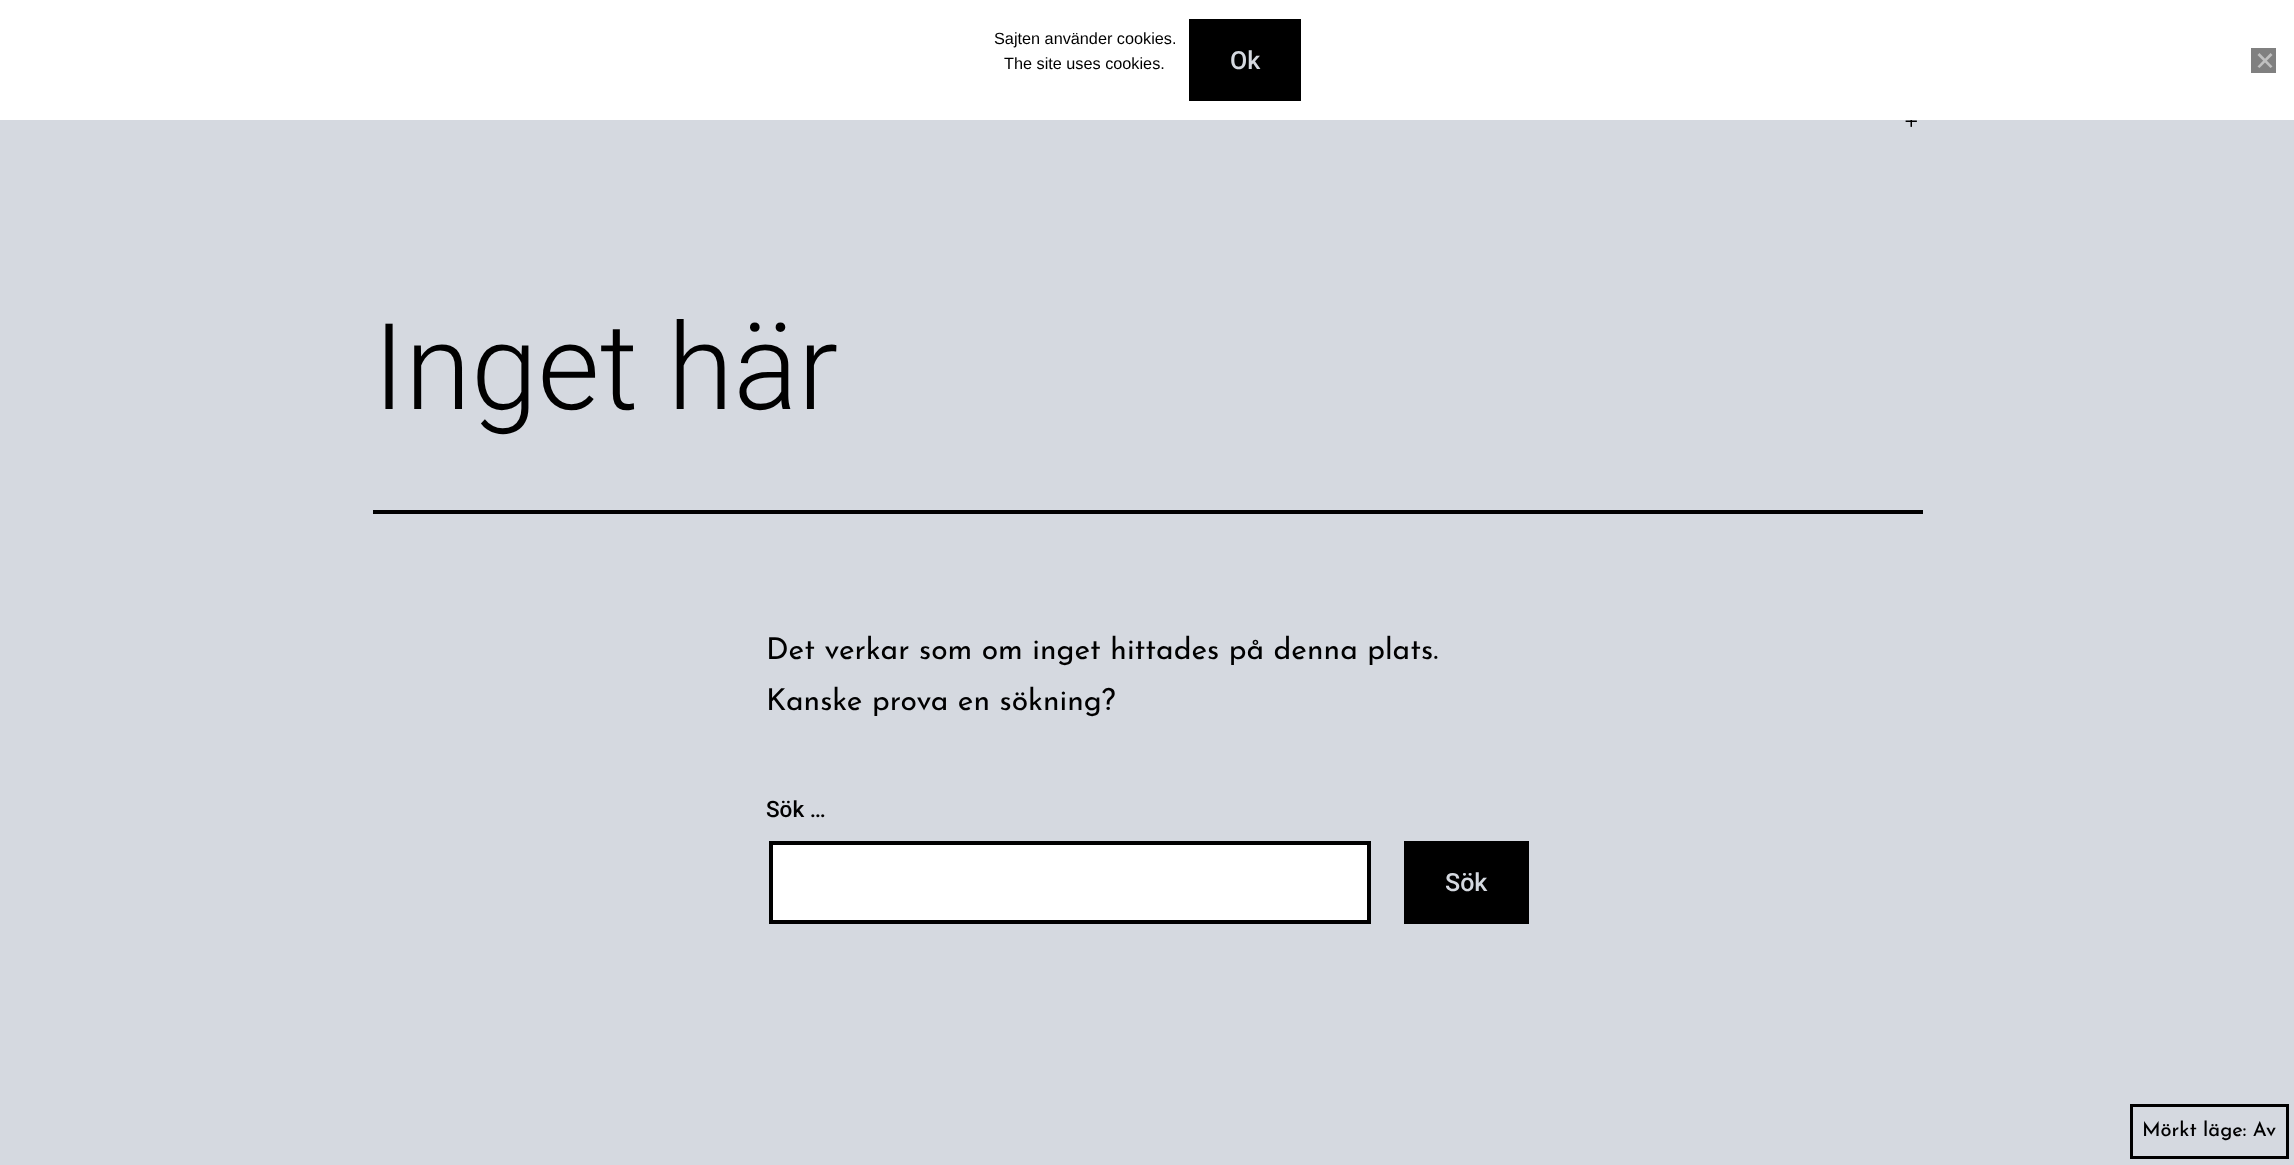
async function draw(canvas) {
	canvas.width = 2294;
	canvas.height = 1165;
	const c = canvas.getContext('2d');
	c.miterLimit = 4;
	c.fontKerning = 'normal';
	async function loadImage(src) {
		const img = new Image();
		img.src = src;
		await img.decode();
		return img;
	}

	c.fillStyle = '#d5d9e0';
	c.fillRect(0, 0, 2294, 1165);
	c.fillStyle = '#fff';
	c.fillRect(0, 0, 2294, 120);
	c.font = '16.25px Liberation Sans';
	c.fillStyle = '#000';
	c.fillText('Sajten använder cookies.', 994, 44);
	c.fillText('The site uses cookies.', 1004, 69);
	c.fillRect(1189, 19, 112, 82);
	c.font = '500 25px Roboto';
	c.fillStyle = '#d5d9e0';
	c.fillText('Ok', 1230, 69);
	c.fillStyle = '#808080';
	c.fillRect(2251, 48, 25, 25);
	c.fillStyle = '#c0c0c0';
	c.beginPath();
	c.moveTo(2270.5, 53);
	c.lineTo(2272.5, 55);
	c.lineTo(2259.5, 68);
	c.lineTo(2257.5, 66.5);
	c.closePath();
	c.fill();
	c.beginPath();
	c.moveTo(2257.5, 55);
	c.lineTo(2259.5, 53);
	c.lineTo(2272.5, 66.5);
	c.lineTo(2270.5, 68);
	c.closePath();
	c.fill();
	c.drawImage(await loadImage('img1.png'), 1905, 120, 12, 7);
	c.fillStyle = '#000';
	c.fillRect(373, 510, 1550, 4);
	c.font = '300 120px Roboto';
	c.fillText('Inget här', 373, 409);
	c.font = '30px Josefin Sans';
	c.fillText('Det verkar som om inget hittades på denna plats.', 766, 659);
	c.fillText('Kanske prova en sökning?', 766, 710);
	c.font = '500 22.5px Roboto';
	c.fillText('Sök …', 766, 817);
	c.fillStyle = '#fff';
	c.beginPath();
	c.rect(771, 843, 598, 79);
	c.fill();
	c.strokeStyle = '#000';
	c.lineWidth = 4;
	c.stroke();
	c.fillStyle = '#000';
	c.fillRect(1404, 841, 125, 83);
	c.font = '500 25px Roboto';
	c.fillStyle = '#d5d9e0';
	c.fillText('Sök', 1445, 891);
	c.lineWidth = 3;
	c.strokeRect(2131.5, 1105.5, 156, 52);
	c.font = '500 20px Josefin Sans';
	c.fillStyle = '#000';
	c.fillText('Mörkt läge: Av', 2142, 1136);
}

draw(document.querySelector('canvas'));
